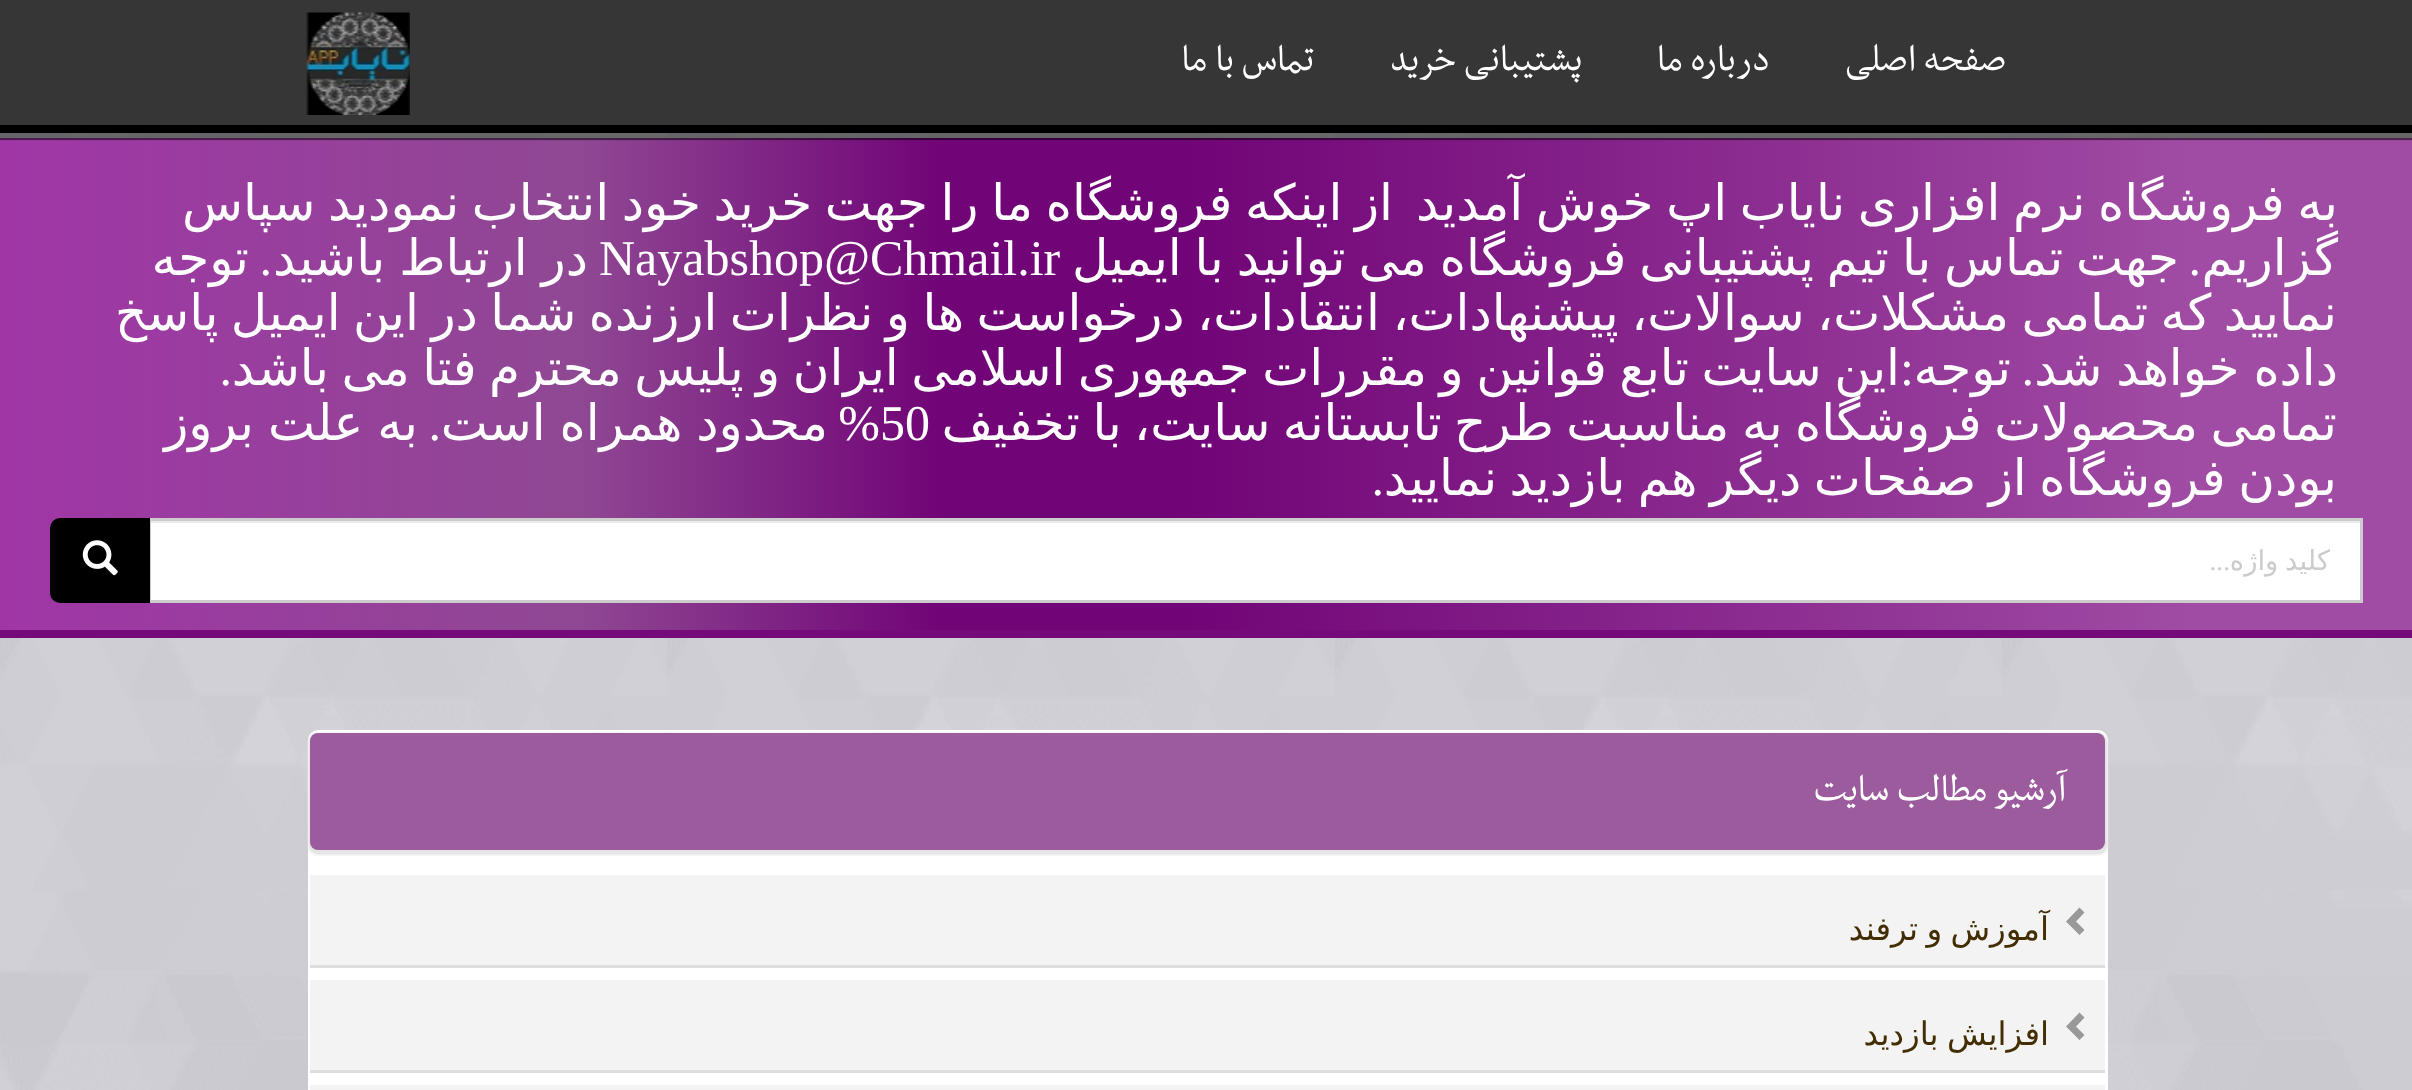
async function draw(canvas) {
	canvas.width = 2412;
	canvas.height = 1090;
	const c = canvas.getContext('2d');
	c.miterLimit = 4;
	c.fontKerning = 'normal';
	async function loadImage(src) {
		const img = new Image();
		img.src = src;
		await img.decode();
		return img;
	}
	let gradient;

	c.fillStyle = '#fff';
	c.fillRect(0, 0, 2412, 1090);
	c.drawImage(await loadImage('img1.png'), 0, 133, 2412, 957);
	gradient = c.createLinearGradient(0, 384, 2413, 384);
	gradient.addColorStop(0, '#a036a6');
	gradient.addColorStop(0.24, '#8f4893');
	gradient.addColorStop(0.36, '#77127d');
	gradient.addColorStop(0.39, '#710477');
	gradient.addColorStop(0.49, '#710477');
	gradient.addColorStop(0.66, '#842189');
	gradient.addColorStop(0.91, '#a04ca4');
	c.fillStyle = gradient;
	c.fillRect(0, 138, 2412, 492);
	c.fillStyle = '#0000000d';
	c.fillRect(0, 138, 2412, 3);
	c.fillStyle = '#00000080';
	c.beginPath();
	c.moveTo(0, 132);
	c.lineTo(0, 140);
	c.lineTo(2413, 140);
	c.lineTo(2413, 8);
	c.lineTo(2412, 8);
	c.lineTo(2412, 132);
	c.closePath();
	c.fill();
	c.fillStyle = '#363636';
	c.fillRect(0, 0, 2412, 125);
	c.fillStyle = '#000';
	c.fillRect(0, 125, 2412, 8);
	c.direction = 'rtl';
	c.font = '42.5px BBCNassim';
	c.fillStyle = '#fff';
	for (const [text, x, y] of [
		['صفحه اصلی', 2006, 70],
		['درباره ما', 1770, 70],
		['پشتیبانی خرید', 1582, 70],
		['تماس با ما', 1314, 70],
	]) {
		c.fillText(text, x, y);
	}
	c.drawImage(await loadImage('img2.png'), 306, 12, 104, 103);
	c.fillStyle = '#750a7b';
	c.fillRect(0, 630, 2412, 8);
	c.wordSpacing = '-3.25px';
	c.font = '50px DejaVu Sans';
	c.fillStyle = '#fff';
	c.fillText('به فروشگاه نرم افزاری نایاب اپ خوش آمدید', 2338, 220);
	c.fillText('از اینکه فروشگاه ما را جهت خرید خود انتخاب نمودید سپاس', 1393, 220);
	c.wordSpacing = '0px';
	c.fillText('گزاریم', 2338, 275);
	c.wordSpacing = '-3px';
	c.fillText('جهت تماس با تیم پشتیبانی فروشگاه می توانید با ایمیل', 2179, 275);
	c.wordSpacing = '0px';
	c.direction = 'ltr';
	c.font = '50px Liberation Serif';
	c.fillText('Nayabshop@Chmail.ir', 599, 275);
	c.wordSpacing = '-2px';
	c.direction = 'rtl';
	c.font = '50px DejaVu Sans';
	c.fillText('در ارتباط باشید', 588, 275);
	c.wordSpacing = '0px';
	c.font = '50px Liberation Serif';
	c.fillText('.', 272, 275);
	c.font = '50px DejaVu Sans';
	c.fillText('توجه', 249, 275);
	c.font = '50px Liberation Serif';
	c.fillText('.', 2201, 275);
	c.wordSpacing = '-3.4px';
	c.font = '50px DejaVu Sans';
	c.fillText('نمایید که تمامی مشکلات، سوالات، پیشنهادات، انتقادات، درخواست ها و نظرات ارزنده شما در این ایمیل پاسخ', 2337, 330);
	c.wordSpacing = '-2px';
	c.fillText('داده خواهد شد', 2338, 385);
	c.wordSpacing = '-3.4px';
	c.fillText('این سایت تابع قوانین و مقررات جمهوری اسلامی ایران و پلیس محترم فتا می باشد', 1900, 385);
	c.wordSpacing = '0px';
	c.fillText('توجه', 2011, 385);
	c.font = '50px Liberation Serif';
	for (const [text, x, y] of [
		['.', 2034, 385],
		[':', 1914, 385],
		['.', 232, 385],
	]) {
		c.fillText(text, x, y);
	}
	c.wordSpacing = '-3.4px';
	c.font = '50px DejaVu Sans';
	c.fillText('تمامی محصولات فروشگاه به مناسبت طرح تابستانه سایت، با تخفیف', 2337, 440);
	c.wordSpacing = '0px';
	c.direction = 'ltr';
	c.font = '50px Liberation Serif';
	c.fillText('50', 880, 440);
	c.direction = 'rtl';
	c.fillText('%', 880, 440);
	c.wordSpacing = '-2px';
	c.font = '50px DejaVu Sans';
	c.fillText('محدود همراه است', 828, 440);
	c.wordSpacing = '0px';
	c.font = '50px Liberation Serif';
	c.fillText('.', 441, 440);
	c.wordSpacing = '-2px';
	c.font = '50px DejaVu Sans';
	c.fillText('به علت بروز', 418, 440);
	c.wordSpacing = '-3.4px';
	c.fillText('بودن فروشگاه از صفحات دیگر هم بازدید نمایید', 2337, 495);
	c.wordSpacing = '0px';
	c.font = '50px Liberation Serif';
	c.fillText('.', 1384, 495);
	c.fillRect(151, 523, 2209, 77);
	c.fillStyle = '#ececec';
	c.fillRect(150, 521, 2210, 2);
	c.strokeStyle = '#ccc';
	c.lineWidth = 3;
	c.strokeRect(149.5, 519.5, 2212, 82);
	c.save();
	c.beginPath();
	c.rect(180, 545, 2150, 33);
	c.clip();
	c.wordSpacing = '-2px';
	c.font = '27.5px DejaVu Sans';
	c.fillStyle = '#ccc';
	c.fillText('کلید واژه', 2330, 570);
	c.restore();
	c.font = '27.5px Liberation Serif';
	c.fillStyle = '#ccc';
	c.fillText('...', 2230, 570);
	c.fillStyle = '#000';
	c.beginPath();
	c.roundRect(51.5, 519.5, 97, 82, [8.5, 0, 0, 8.5]);
	c.fill();
	c.strokeStyle = '#000';
	c.stroke();
	c.drawImage(await loadImage('img3.png'), 82, 540, 36, 36);
	c.fillStyle = '#fff';
	c.beginPath();
	c.roundRect(309.5, 731.5, 1797, 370, 8.5);
	c.fill();
	c.strokeStyle = '#fff';
	c.stroke();
	c.fillStyle = '#e5e5e5';
	c.filter = 'blur(1px)';
	c.beginPath();
	c.roundRect(308, 733, 1800, 122, 10);
	c.fill();
	c.filter = 'none';
	c.fillStyle = '#9b5b9d';
	c.beginPath();
	c.roundRect(310, 733, 1795, 117, 8);
	c.fill();
	c.font = '42.5px BBCNassim';
	c.fillStyle = '#fff';
	c.fillText('آرشیو مطالب سایت', 2066, 800);
	c.fillStyle = '#f3f3f3';
	c.fillRect(310, 875, 1795, 90);
	c.fillStyle = '#ddd';
	c.fillRect(310, 965, 1795, 3);
	c.fillStyle = '#999';
	c.beginPath();
	c.moveTo(2084.5, 912.5);
	c.lineTo(2076, 921.5);
	c.lineTo(2084.5, 930);
	c.lineTo(2079.5, 935);
	c.lineTo(2066, 921.5);
	c.lineTo(2079.5, 907.5);
	c.closePath();
	c.fill();
	c.wordSpacing = '-2px';
	c.font = '32.5px DejaVu Sans';
	c.fillStyle = '#422e02';
	c.fillText('آموزش و ترفند', 2049, 940);
	c.fillStyle = '#f3f3f3';
	c.fillRect(310, 980, 1795, 90);
	c.fillStyle = '#ddd';
	c.fillRect(310, 1070, 1795, 3);
	c.fillStyle = '#999';
	c.beginPath();
	c.moveTo(2084.5, 1017.5);
	c.lineTo(2076, 1026.5);
	c.lineTo(2084.5, 1035);
	c.lineTo(2079.5, 1040);
	c.lineTo(2066, 1026.5);
	c.lineTo(2079.5, 1012.5);
	c.closePath();
	c.fill();
	c.fillStyle = '#422e02';
	c.fillText('افزایش بازدید', 2049, 1045);
	c.fillStyle = '#f3f3f3';
	c.fillRect(310, 1085, 1795, 5);
}

draw(document.querySelector('canvas'));
